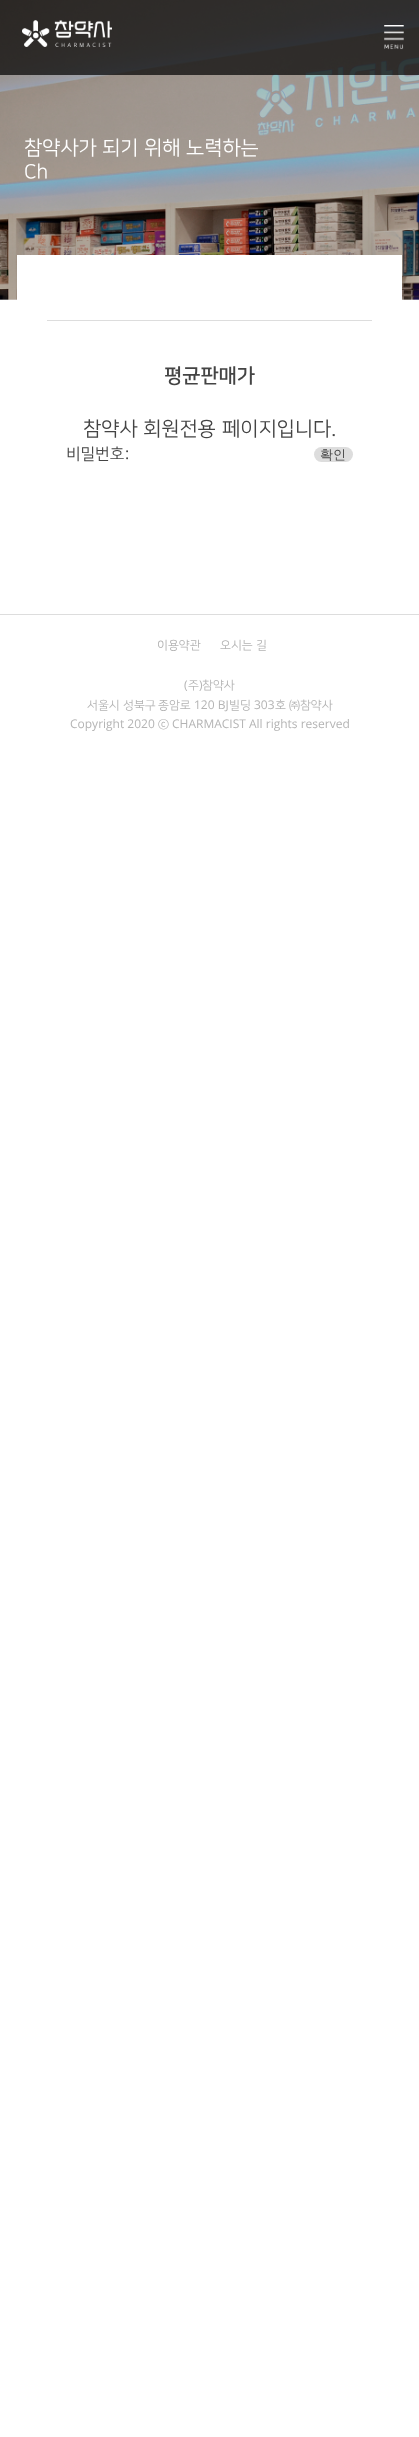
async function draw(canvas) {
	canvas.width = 419;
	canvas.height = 2437;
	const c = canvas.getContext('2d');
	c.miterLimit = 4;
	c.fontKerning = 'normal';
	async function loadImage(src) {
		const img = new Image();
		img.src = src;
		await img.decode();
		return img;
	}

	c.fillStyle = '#fff';
	c.fillRect(0, 0, 419, 2437);
	c.drawImage(await loadImage('img3.png'), 0, 0, 419, 300);
	c.fillStyle = '#000000b3';
	c.fillRect(0, 0, 419, 75);
	c.drawImage(await loadImage('img1.png'), 22, 20, 90, 27);
	c.drawImage(await loadImage('img2.png'), 384, 25, 20, 25);
	c.font = '20px "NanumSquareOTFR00"';
	c.fillStyle = '#fff';
	for (const [text, x, y] of [
		['참약사가', 24, 154],
		['되기', 102, 154],
		['위해', 144, 154],
		['노력하는', 186, 154],
		['Ch', 24, 178],
	]) {
		c.fillText(text, x, y);
	}
	c.fillRect(17, 255, 385, 45);
	c.fillStyle = '#ddd';
	c.fillRect(47, 320, 325, 1);
	c.font = 'bold 20px "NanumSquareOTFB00"';
	c.fillStyle = '#444';
	c.fillText('평균판매가', 164, 382);
	c.font = '20px "NanumSquareOTFR00"';
	for (const [text, x, y] of [
		['참약사', 83, 435],
		['회원전용', 143, 435],
		['페이지입니다.', 222, 435],
	]) {
		c.fillText(text, x, y);
	}
	c.font = '16px "NanumSquareOTFR00"';
	c.fillText('비밀번호', 66, 459);
	c.font = '16px Open Sans';
	c.fillText(':', 125, 459);
	c.fillStyle = '#ddd';
	c.beginPath();
	c.roundRect(314, 447, 39, 15, 7.5);
	c.fill();
	c.font = '500 13px WenQuanYi Zen Hei';
	c.fillStyle = '#444';
	c.fillText('확인', 320, 459);
	c.fillStyle = '#ddd';
	c.fillRect(0, 614, 419, 1);
	c.font = '12px "NanumSquareOTFR00"';
	c.fillStyle = '#b4b4b4';
	for (const [text, x, y] of [
		['이용약관', 157, 649],
		['오시는', 220, 649],
		['길', 256, 649],
	]) {
		c.fillText(text, x, y);
	}
	c.drawImage(await loadImage('img4.png'), 188, 680, 11, 11);
	c.font = '12px Open Sans';
	c.fillText('(', 184, 689);
	c.fillText(')', 199, 689);
	c.font = '12px "NanumSquareOTFR00"';
	for (const [text, x, y] of [
		['참약사', 202, 689],
		['서울시', 87, 709],
		['성북구', 123, 709],
		['종암로', 158, 709],
	]) {
		c.fillText(text, x, y);
	}
	c.font = '12px Open Sans';
	c.fillText('120 BJ', 194, 709);
	c.font = '12px "NanumSquareOTFR00"';
	c.fillText('빌딩', 229, 709);
	c.font = '12px Open Sans';
	c.fillText('303', 254, 709);
	c.font = '12px "NanumSquareOTFR00"';
	c.fillText('호', 275, 709);
	c.fillText('㈜참약사', 289, 709);
	c.font = '12px Open Sans';
	c.fillText('Copyright 2020', 70, 728);
	c.font = '12px "NanumSquareOTFR00"';
	c.fillText('ⓒ', 158, 728);
	c.font = '12px Open Sans';
	c.fillText('CHARMACIST All rights reserved', 172, 728);
}

draw(document.querySelector('canvas'));
